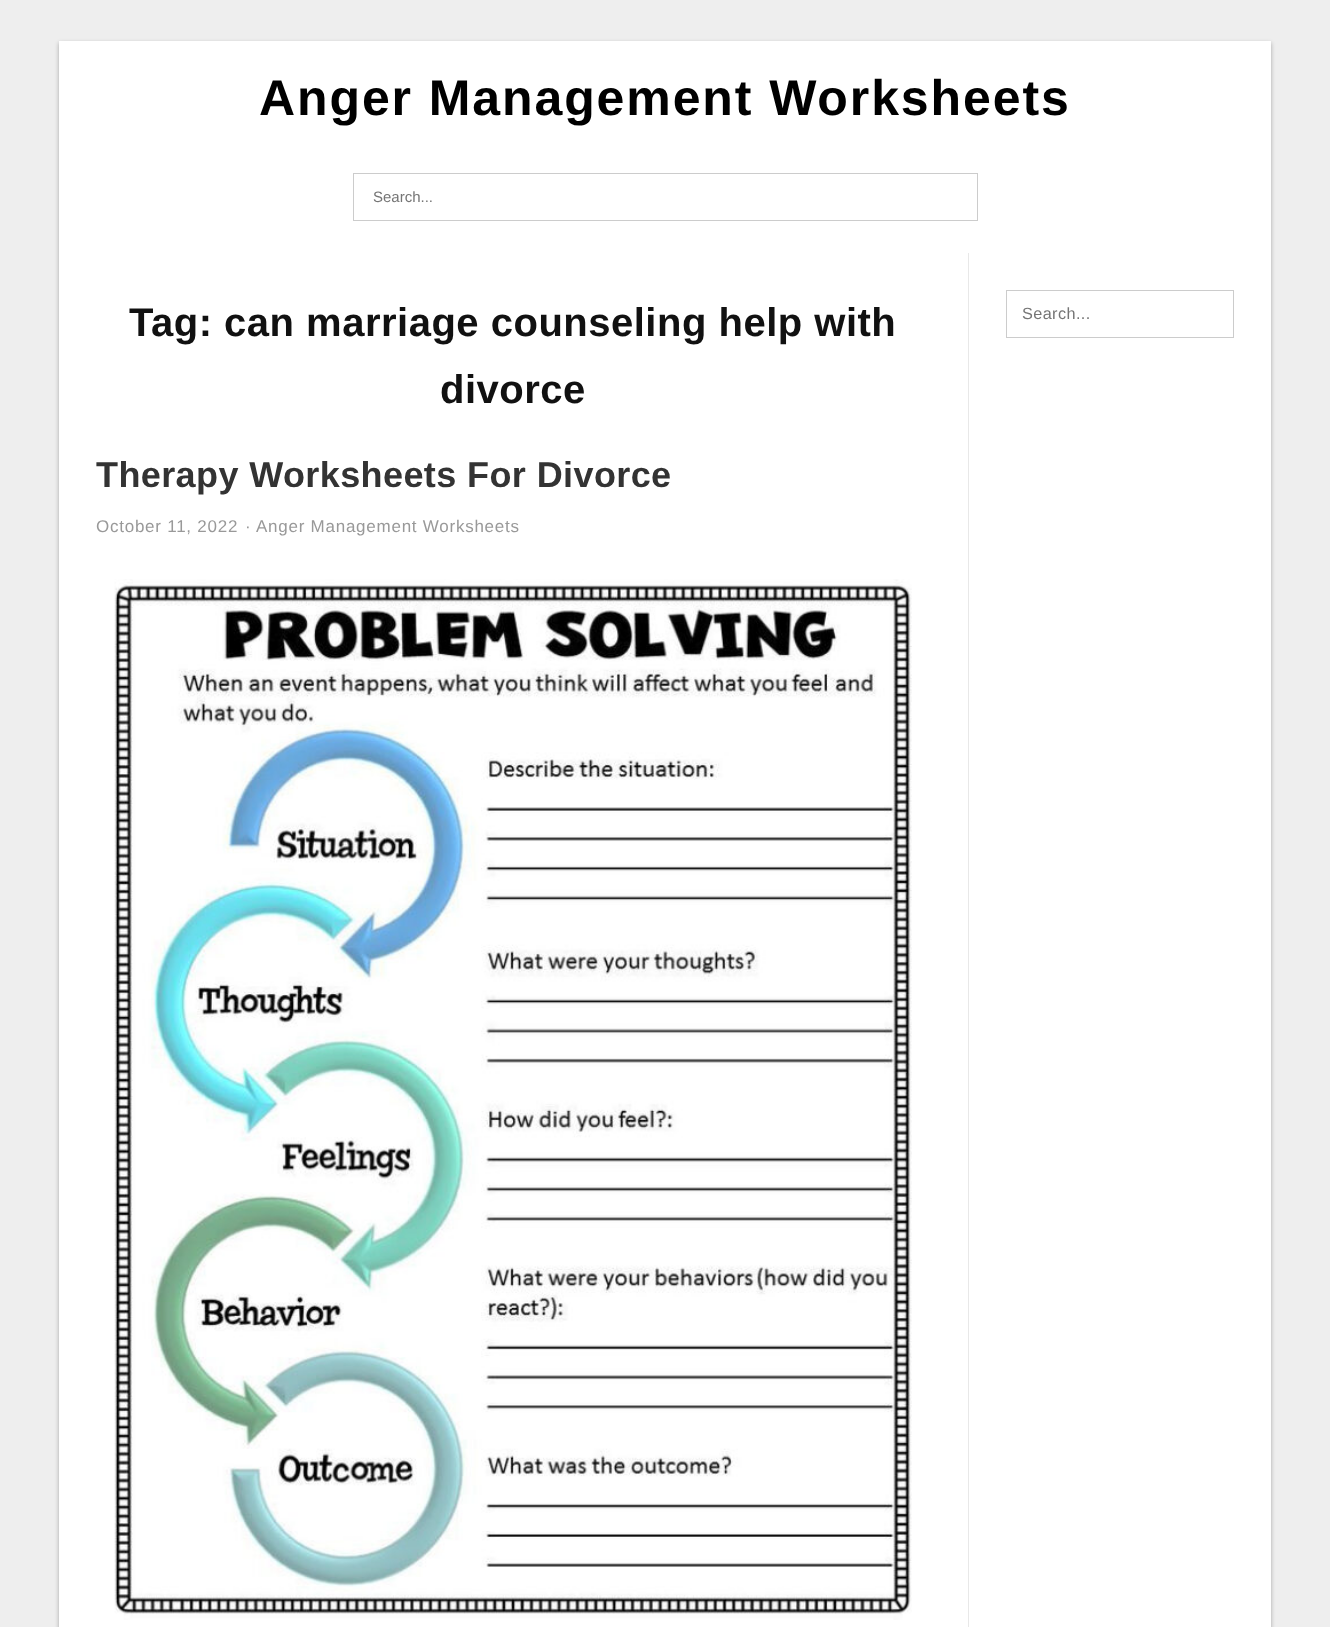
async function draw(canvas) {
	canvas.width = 1330;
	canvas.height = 1627;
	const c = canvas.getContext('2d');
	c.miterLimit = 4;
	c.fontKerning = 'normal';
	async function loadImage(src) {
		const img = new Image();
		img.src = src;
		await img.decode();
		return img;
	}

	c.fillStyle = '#eee';
	c.fillRect(0, 0, 1330, 1627);
	c.fillStyle = '#0000004d';
	c.filter = 'blur(2px)';
	c.beginPath();
	c.rect(59, 43, 1212, 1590);
	c.fill();
	c.filter = 'none';
	c.fillStyle = '#fff';
	c.fillRect(59, 41, 1212, 1586);
	c.letterSpacing = '1.9px';
	c.font = 'bold 50px Liberation Sans';
	c.fillStyle = '#000';
	c.fillText('Anger Management Worksheets', 259, 115);
	c.strokeStyle = '#ccc';
	c.strokeRect(353.5, 173.5, 624, 47);
	c.letterSpacing = '0px';
	c.font = '15px Liberation Sans';
	c.fillStyle = '#757575';
	c.fillText('Search...', 373, 202);
	c.fillStyle = '#e8e8e8';
	c.fillRect(968, 253, 1, 1374);
	c.letterSpacing = '0.5px';
	c.font = 'bold 40px Liberation Sans';
	c.fillStyle = '#111';
	c.fillText('Tag: can marriage counseling help with', 129, 336);
	c.fillText('divorce', 440, 403);
	c.letterSpacing = '0.4px';
	c.font = 'bold 36px Liberation Sans';
	c.fillStyle = '#333';
	c.fillText('Therapy Worksheets For Divorce', 96, 487);
	c.letterSpacing = '0.75px';
	c.font = '17px Liberation Sans';
	c.fillStyle = '#999';
	for (const [text, x, y] of [
		['October 11, 2022', 96, 532],
		['·', 245, 532],
		['Anger Management Worksheets', 256, 532],
	]) {
		c.fillText(text, x, y);
	}
	c.drawImage(await loadImage('img1.png'), 114, 579, 798, 1041);
	c.strokeRect(1006.5, 290.5, 227, 47);
	c.letterSpacing = '0.4px';
	c.font = '16.25px Liberation Sans';
	c.fillStyle = '#757575';
	c.fillText('Search...', 1022, 319);
}

draw(document.querySelector('canvas'));
